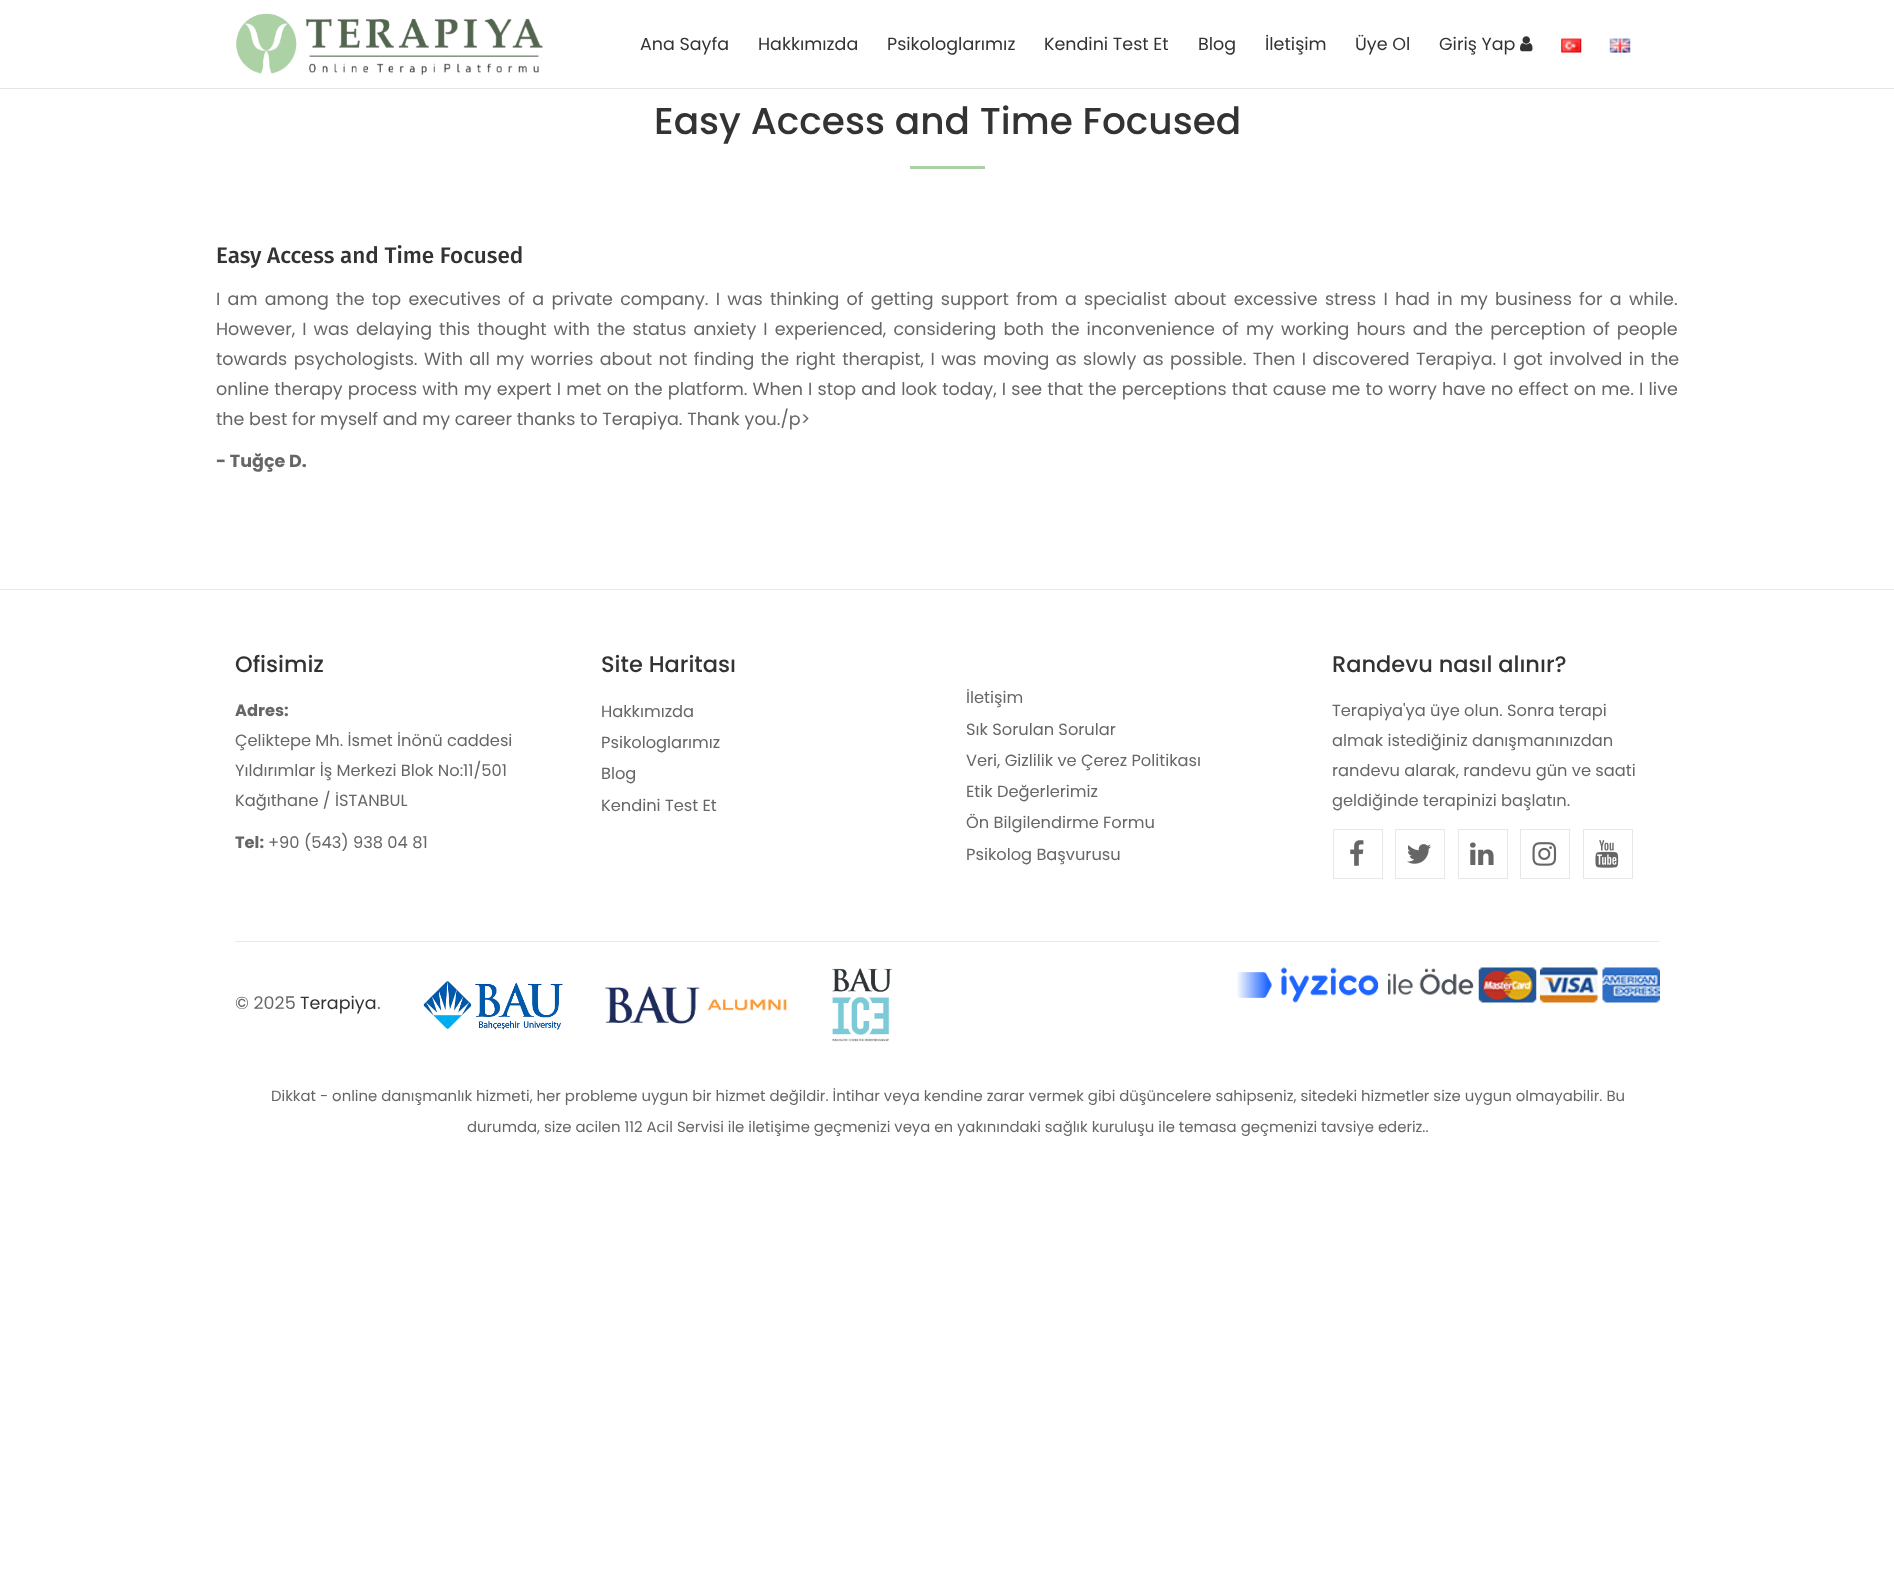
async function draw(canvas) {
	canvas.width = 1894;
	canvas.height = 1579;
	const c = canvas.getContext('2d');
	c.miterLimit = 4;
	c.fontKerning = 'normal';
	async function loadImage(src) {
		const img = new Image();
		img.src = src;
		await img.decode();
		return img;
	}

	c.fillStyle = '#fff';
	c.fillRect(0, 0, 1894, 1579);
	c.fillStyle = '#0000001a';
	c.filter = 'blur(0.5px)';
	c.beginPath();
	c.rect(0, 1, 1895, 88);
	c.fill();
	c.filter = 'none';
	c.fillStyle = '#fff';
	c.fillRect(0, 0, 1894, 88);
	c.drawImage(await loadImage('img1.png'), 236, 13, 307, 62);
	c.font = '17.5px Poppins';
	c.fillStyle = '#333';
	for (const [text, x, y] of [
		['Ana Sayfa', 640, 50],
		['Hakkımızda', 758, 50],
		['Psikologlarımız', 887, 50],
		['Kendini Test Et', 1044, 50],
		['Blog', 1198, 50],
		['İletişim', 1265, 50],
		['Üye Ol', 1355, 50],
		['Giriş Yap', 1439, 50],
	]) {
		c.fillText(text, x, y);
	}
	c.drawImage(await loadImage('img2.png'), 1520, 36, 13, 16);
	c.drawImage(await loadImage('img3.png'), 1561, 38, 21, 15);
	c.drawImage(await loadImage('img4.png'), 1609, 38, 22, 15);
	c.font = '500 37.5px Poppins';
	c.fillText('Easy Access and Time Focused', 654, 134);
	c.fillStyle = '#acd0a5';
	c.fillRect(910, 166, 75, 3);
	c.font = '500 22.5px Fira Sans';
	c.fillStyle = '#333';
	c.fillText('Easy Access and Time Focused', 216, 263);
	c.wordSpacing = '2.6px';
	c.font = '17.5px Poppins';
	c.fillStyle = '#666';
	c.fillText('I am among the top executives of a private company. I was thinking of getting support from a specialist about excessive stress I had in my business for a while.', 216, 305);
	c.wordSpacing = '2.4px';
	c.fillText('However, I was delaying this thought with the status anxiety I experienced, considering both the inconvenience of my working hours and the perception of people', 216, 335);
	c.wordSpacing = '1.75px';
	c.fillText('towards psychologists. With all my worries about not finding the right therapist, I was moving as slowly as possible. Then I discovered Terapiya. I got involved in the', 216, 365);
	c.wordSpacing = '0.5px';
	c.fillText('online therapy process with my expert I met on the platform. When I stop and look today, I see that the perceptions that cause me to worry have no effect on me. I live', 216, 395);
	c.wordSpacing = '0px';
	c.fillText('the best for myself and my career thanks to Terapiya. Thank you./p>', 216, 425);
	c.font = 'bold 17.5px Poppins';
	c.fillText('- Tuğçe D.', 216, 467);
	c.fillStyle = '#eaeaea';
	c.fillRect(0, 589, 1894, 1);
	c.font = '500 22.5px Poppins';
	c.fillStyle = '#333';
	c.fillText('Ofisimiz', 235, 672);
	c.font = 'bold 16.25px Poppins';
	c.fillStyle = '#666';
	c.fillText('Adres:', 235, 716);
	c.font = '16.25px Poppins';
	for (const [text, x, y] of [
		['Çeliktepe Mh. İsmet İnönü caddesi', 235, 746],
		['Yıldırımlar İş Merkezi Blok No:11/501', 235, 776],
		['Kağıthane / İSTANBUL', 235, 806],
	]) {
		c.fillText(text, x, y);
	}
	c.font = 'bold 16.25px Poppins';
	c.fillText('Tel:', 235, 848);
	c.font = '16.25px Poppins';
	c.fillText('+90 (543) 938 04 81', 268, 848);
	c.font = '500 22.5px Poppins';
	c.fillStyle = '#333';
	c.fillText('Site Haritası', 601, 672);
	c.font = '16.25px Poppins';
	c.fillStyle = '#666';
	for (const [text, x, y] of [
		['Hakkımızda', 601, 717],
		['Psikologlarımız', 601, 748],
		['Blog', 601, 779],
		['Kendini Test Et', 601, 811],
		['İletişim', 966, 703],
		['Sık Sorulan Sorular', 966, 735],
		['Veri, Gizlilik ve Çerez Politikası', 966, 766],
		['Etik Değerlerimiz', 966, 797],
		['Ön Bilgilendirme Formu', 966, 828],
		['Psikolog Başvurusu', 966, 860],
	]) {
		c.fillText(text, x, y);
	}
	c.font = '500 22.5px Poppins';
	c.fillStyle = '#333';
	c.fillText('Randevu nasıl alınır?', 1332, 672);
	c.font = '16.25px Poppins';
	c.fillStyle = '#666';
	for (const [text, x, y] of [
		['Terapiya\'ya üye olun. Sonra terapi', 1332, 716],
		['almak istediğiniz danışmanınızdan', 1332, 746],
		['randevu alarak, randevu gün ve saati', 1332, 776],
		['geldiğinde terapinizi başlatın.', 1332, 806],
	]) {
		c.fillText(text, x, y);
	}
	c.strokeStyle = '#e7e7e7';
	c.strokeRect(1333.5, 829.5, 49, 49);
	c.drawImage(await loadImage('img5.png'), 1350, 840, 14, 26);
	c.strokeRect(1395.5, 829.5, 49, 49);
	c.drawImage(await loadImage('img6.png'), 1407, 844, 24, 20);
	c.strokeRect(1458.5, 829.5, 49, 49);
	c.drawImage(await loadImage('img7.png'), 1470, 842, 24, 23);
	c.strokeRect(1520.5, 829.5, 49, 49);
	c.drawImage(await loadImage('img8.png'), 1532, 842, 25, 24);
	c.strokeRect(1583.5, 829.5, 49, 49);
	c.drawImage(await loadImage('img9.png'), 1595, 840, 24, 28);
	c.fillStyle = '#eaeaea';
	c.fillRect(235, 941, 1425, 1);
	c.font = '17.5px Poppins';
	c.fillStyle = '#666';
	c.fillText('© 2025', 235, 1009);
	c.fillStyle = '#333';
	c.fillText('Terapiya', 300, 1009);
	c.fillStyle = '#666';
	c.fillText('.', 377, 1009);
	c.drawImage(await loadImage('img10.png'), 423, 981, 140, 49);
	c.drawImage(await loadImage('img11.png'), 605, 986, 182, 38);
	c.drawImage(await loadImage('img12.png'), 831, 968, 62, 74);
	c.drawImage(await loadImage('img13.png'), 1237, 967, 237, 36);
	c.drawImage(await loadImage('img14.png'), 1478, 967, 59, 36);
	c.drawImage(await loadImage('img15.png'), 1540, 967, 58, 36);
	c.drawImage(await loadImage('img16.png'), 1602, 967, 58, 36);
	c.font = '14.88px Poppins';
	c.fillText('Dikkat - online danışmanlık hizmeti, her probleme uygun bir hizmet değildir. İntihar veya kendine zarar vermek gibi düşüncelere sahipseniz, sitedeki hizmetler size uygun olmayabilir. Bu', 271, 1101);
	c.fillText('durumda, size acilen 112 Acil Servisi ile iletişime geçmenizi veya en yakınındaki sağlık kuruluşu ile temasa geçmenizi tavsiye ederiz..', 467, 1132);
}

draw(document.querySelector('canvas'));
